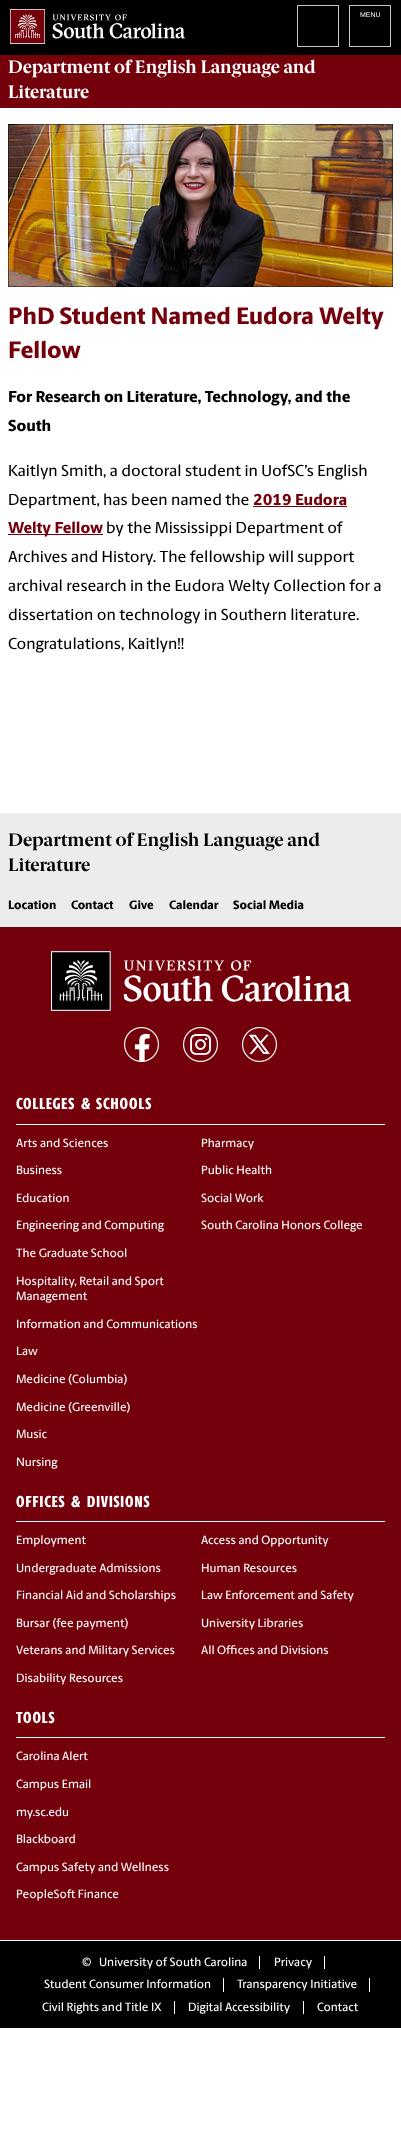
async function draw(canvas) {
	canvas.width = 401;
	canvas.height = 2138;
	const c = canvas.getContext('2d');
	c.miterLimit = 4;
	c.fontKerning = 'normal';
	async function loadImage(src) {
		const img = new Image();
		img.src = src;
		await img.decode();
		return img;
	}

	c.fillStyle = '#fff';
	c.fillRect(0, 0, 401, 2138);
	for (const [x, y, w, h, color] of [
		[0, 52, 8, 56, '#73000a'],
		[393, 52, 8, 56, '#73000a'],
		[0, 0, 401, 55, '#000'],
	]) {
		c.fillStyle = color;
		c.fillRect(x, y, w, h);
	}
	c.drawImage(await loadImage('img1.png'), 10, 9, 175, 35);
	c.strokeStyle = '#c7c7c7';
	c.strokeRect(297.5, 5.5, 41, 41);
	c.strokeRect(349.5, 5.5, 41, 41);
	c.font = '7px Liberation Sans';
	c.fillStyle = '#fff';
	c.fillText('MENU', 360, 17);
	c.fillStyle = '#73000a';
	c.fillRect(8, 55, 385, 53);
	c.font = 'bold 18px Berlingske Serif';
	c.fillStyle = '#fff';
	c.fillText('Department of English Language and', 8, 73);
	c.fillText('Literature', 8, 98);
	c.drawImage(await loadImage('img2.png'), 8, 124, 385, 163);
	c.font = '800 24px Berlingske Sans';
	c.fillStyle = '#73000a';
	c.fillText('PhD Student Named Eudora Welty', 8, 324);
	c.fillText('Fellow', 8, 358);
	c.font = '800 16px Berlingske Sans';
	c.fillStyle = '#000';
	c.fillText('For Research on Literature, Technology, and the', 8, 402);
	c.fillText('South', 8, 431);
	c.font = '500 16px Berlingske Sans';
	c.fillText('Kaitlyn Smith, a doctoral student in UofSC’s English', 8, 476);
	c.fillText('Department, has been named the', 8, 505);
	c.font = '800 16px Berlingske Sans';
	c.fillStyle = '#73000a';
	c.fillText('2019 Eudora', 253, 505);
	c.fillRect(253, 506, 94, 1);
	c.fillRect(8, 534, 95, 1);
	c.fillText('Welty Fellow', 8, 533);
	c.font = '500 16px Berlingske Sans';
	c.fillStyle = '#000';
	for (const [text, x, y] of [
		['by the Mississippi Department of', 106, 533],
		['Archives and History. The fellowship will support', 8, 562],
		['archival research in the Eudora Welty Collection for a', 8, 591],
		['dissertation on technology in Southern literature.', 8, 620],
		['Congratulations, Kaitlyn!!', 8, 649],
	]) {
		c.fillText(text, x, y);
	}
	c.fillStyle = '#ececec';
	c.fillRect(0, 813, 401, 114);
	c.font = 'bold 18.25px Berlingske Serif';
	c.fillStyle = '#000';
	c.fillText('Department of English Language and', 8, 846);
	c.fillText('Literature', 8, 871);
	c.font = '800 12.25px Berlingske Sans';
	for (const [text, x, y] of [
		['Location', 8, 909],
		['Contact', 71, 909],
		['Give', 129, 909],
		['Calendar', 169, 909],
		['Social Media', 233, 909],
	]) {
		c.fillText(text, x, y);
	}
	c.fillStyle = '#73000a';
	c.fillRect(0, 927, 401, 1013);
	c.drawImage(await loadImage('img3.png'), 51, 951, 300, 60);
	c.drawImage(await loadImage('img4.png'), 124, 1027, 35, 35);
	c.drawImage(await loadImage('img5.png'), 183, 1027, 35, 35);
	c.drawImage(await loadImage('img6.png'), 242, 1027, 35, 35);
	c.fillStyle = '#fff';
	c.fillRect(16, 1124, 369, 1);
	c.letterSpacing = '1px';
	c.font = '800 16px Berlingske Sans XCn';
	for (const [text, x, y] of [
		['COLLEGES', 16, 1109],
		['&', 81, 1109],
		['SCHOOLS', 96, 1109],
	]) {
		c.fillText(text, x, y);
	}
	c.letterSpacing = '0px';
	c.font = '500 12px Berlingske Sans';
	for (const [text, x, y] of [
		['Arts and Sciences', 16, 1147],
		['Business', 16, 1174],
		['Education', 16, 1202],
		['Engineering and Computing', 16, 1229],
		['The Graduate School', 16, 1257],
		['Hospitality, Retail and Sport', 16, 1285],
		['Management', 16, 1300],
		['Pharmacy', 201, 1147],
		['Public Health', 201, 1174],
		['Social Work', 201, 1202],
		['South Carolina Honors College', 201, 1229],
		['Information and Communications', 16, 1328],
		['Law', 16, 1355],
		['Medicine (Columbia)', 16, 1383],
		['Medicine (Greenville)', 16, 1411],
		['Music', 16, 1438],
		['Nursing', 16, 1466],
	]) {
		c.fillText(text, x, y);
	}
	c.fillRect(16, 1521, 369, 1);
	c.letterSpacing = '1px';
	c.font = '800 16px Berlingske Sans XCn';
	for (const [text, x, y] of [
		['OFFICES', 16, 1507],
		['&', 71, 1507],
		['DIVISIONS', 87, 1507],
	]) {
		c.fillText(text, x, y);
	}
	c.letterSpacing = '0px';
	c.font = '500 12px Berlingske Sans';
	for (const [text, x, y] of [
		['Employment', 16, 1544],
		['Undergraduate Admissions', 16, 1572],
		['Financial Aid and Scholarships', 16, 1599],
		['Bursar (fee payment)', 16, 1627],
		['Veterans and Military Services', 16, 1654],
		['Disability Resources', 16, 1682],
		['Access and Opportunity', 201, 1544],
		['Human Resources', 201, 1572],
		['Law Enforcement and Safety', 201, 1599],
		['University Libraries', 201, 1627],
		['All Offices and Divisions', 201, 1654],
	]) {
		c.fillText(text, x, y);
	}
	c.fillRect(16, 1737, 369, 1);
	c.letterSpacing = '1px';
	c.font = '800 16px Berlingske Sans XCn';
	c.fillText('TOOLS', 16, 1723);
	c.letterSpacing = '0px';
	c.font = '500 12px Berlingske Sans';
	for (const [text, x, y] of [
		['Carolina Alert', 16, 1760],
		['Campus Email', 16, 1788],
		['my.sc.edu', 16, 1816],
		['Blackboard', 16, 1843],
		['Campus Safety and Wellness', 16, 1871],
		['PeopleSoft Finance', 16, 1898],
	]) {
		c.fillText(text, x, y);
	}
	c.fillStyle = '#000';
	c.fillRect(0, 1941, 401, 87);
	c.fillStyle = '#fff';
	c.fillText('©', 82, 1966);
	c.fillText('University of South Carolina', 99, 1966);
	c.fillRect(259, 1956, 1, 13);
	c.fillText('Privacy', 274, 1966);
	c.fillRect(324, 1956, 1, 13);
	c.fillText('Student Consumer Information', 44, 1988);
	c.fillRect(223, 1978, 1, 14);
	c.fillText('Transparency Initiative', 237, 1988);
	c.fillRect(369, 1978, 1, 14);
	c.fillText('Civil Rights and Title IX', 42, 2011);
	c.fillRect(174, 2001, 1, 13);
	c.fillText('Digital Accessibility', 188, 2011);
	c.fillRect(303, 2001, 1, 13);
	c.fillText('Contact', 317, 2011);
}

draw(document.querySelector('canvas'));
